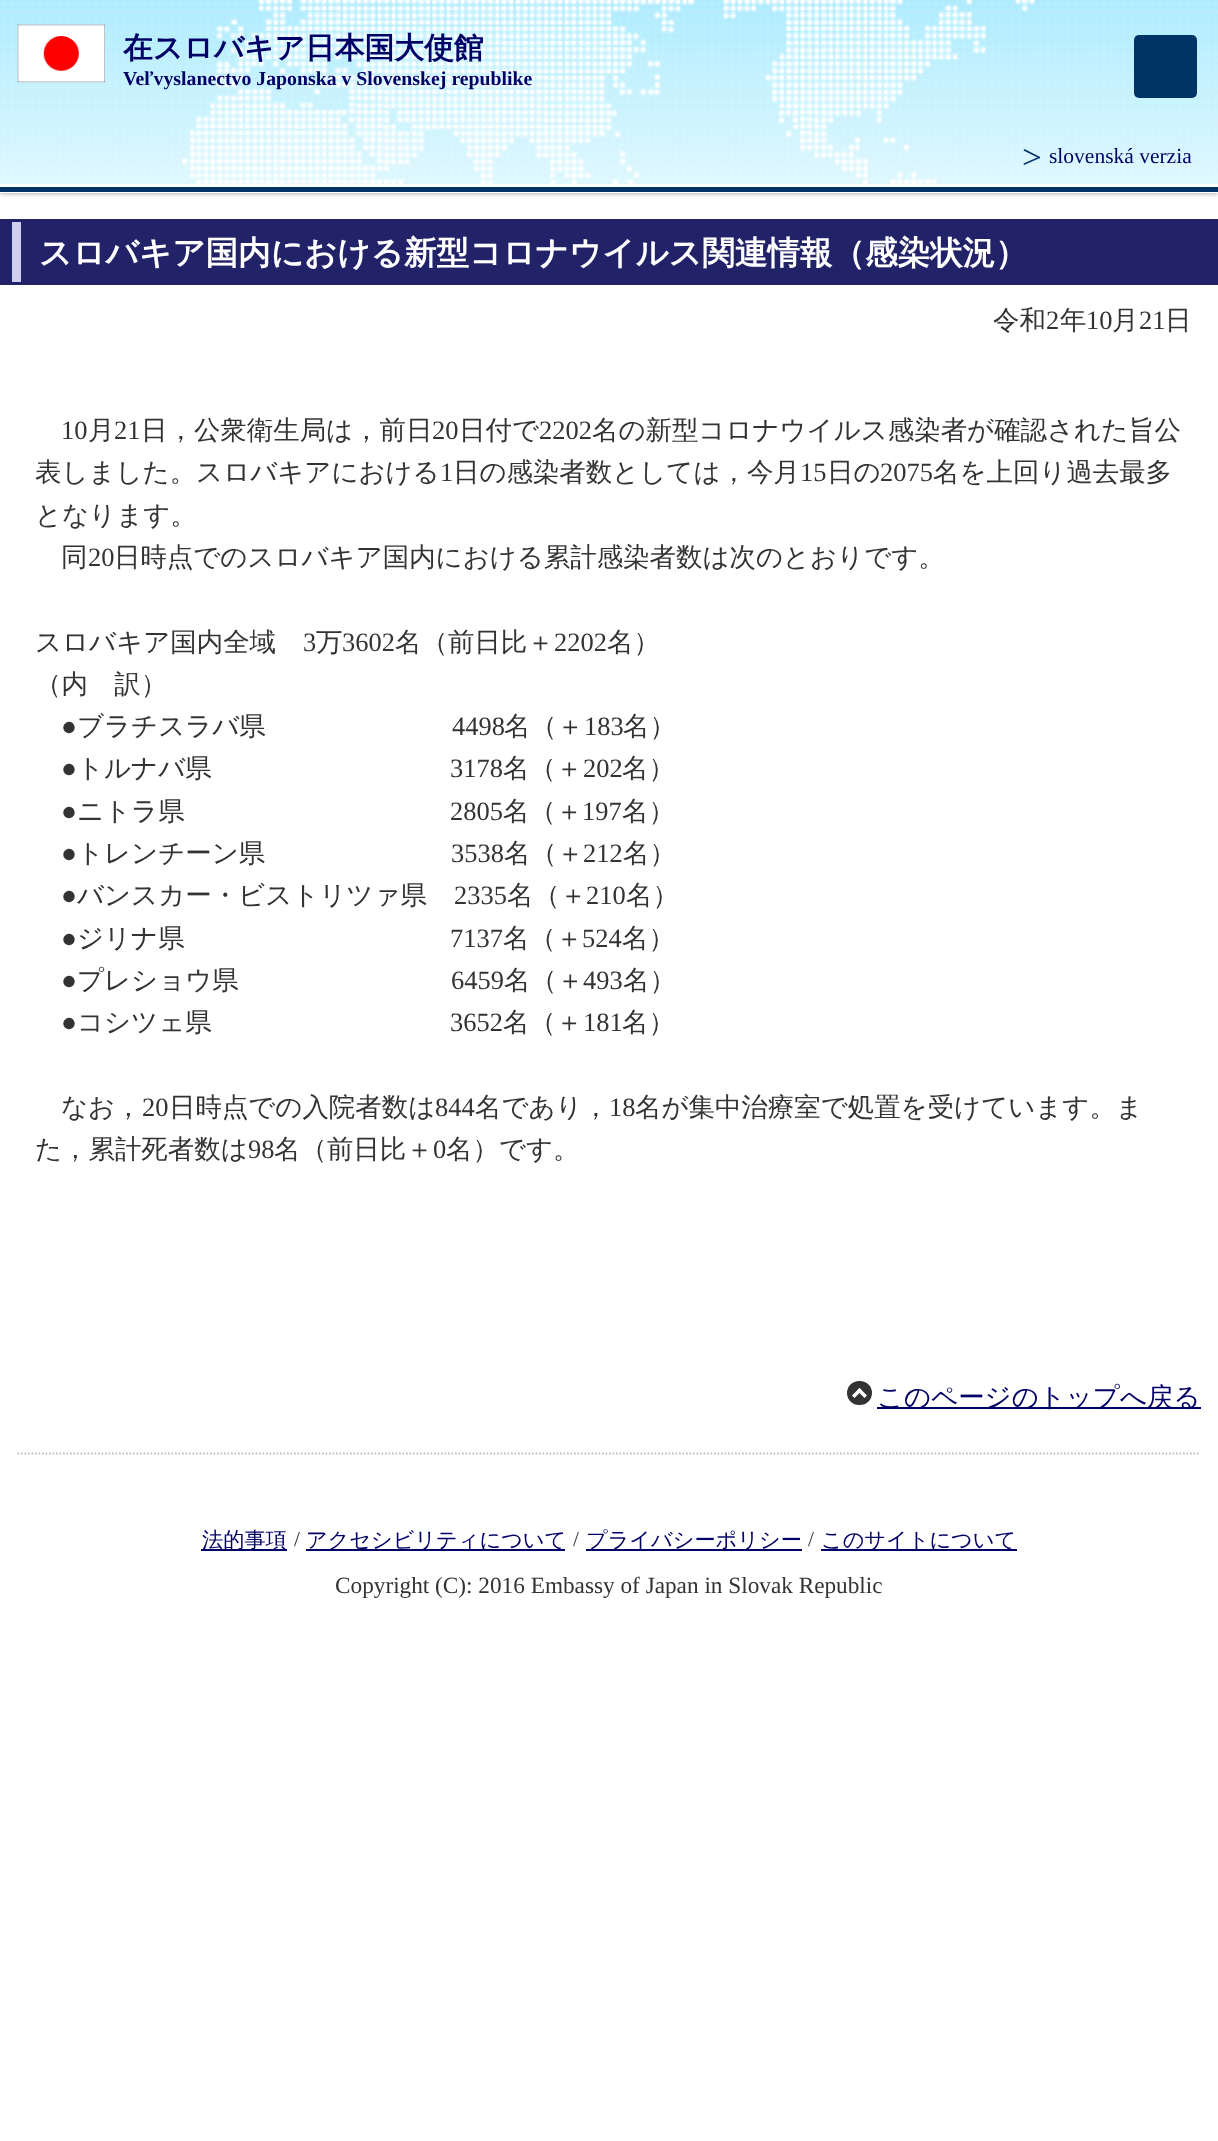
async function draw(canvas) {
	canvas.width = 1218;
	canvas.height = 2141;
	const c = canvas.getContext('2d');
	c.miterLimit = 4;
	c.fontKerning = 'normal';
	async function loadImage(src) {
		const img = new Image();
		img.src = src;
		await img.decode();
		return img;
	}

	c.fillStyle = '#fff';
	c.fillRect(0, 0, 1218, 2141);
	c.drawImage(await loadImage('img1.png'), 0, 0, 1218, 184);
	c.save();
	c.beginPath();
	c.moveTo(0, 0);
	c.lineTo(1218, 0);
	c.lineTo(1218, 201);
	c.lineTo(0, 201);
	c.closePath();
	c.moveTo(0, 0);
	c.lineTo(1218, 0);
	c.lineTo(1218, 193);
	c.lineTo(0, 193);
	c.closePath();
	c.clip('evenodd');
	c.fillStyle = '#0000004d';
	c.filter = 'blur(2px)';
	c.beginPath();
	c.rect(0, 2, 1218, 192);
	c.fill();
	c.filter = 'none';
	c.restore();
	c.drawImage(await loadImage('img2.png'), 182, 0, 853, 193);
	c.drawImage(await loadImage('img3.png'), 17, 24, 88, 59);
	c.font = 'bold 29.75px WenQuanYi Zen Hei';
	c.fillStyle = '#006';
	c.fillText('在スロバキア日本国大使館', 123, 58);
	c.font = 'bold 19.8px Liberation Serif';
	c.fillText('Veľvyslanectvo Japonska v Slovenskej republike', 123, 85);
	c.fillStyle = '#036';
	c.beginPath();
	c.roundRect(1134, 35, 63, 63, 5);
	c.fill();
	c.fillStyle = '#043465';
	c.beginPath();
	c.moveTo(1039.5, 158.5);
	c.lineTo(1023.5, 150.5);
	c.lineTo(1024.5, 149);
	c.lineTo(1040, 157);
	c.closePath();
	c.fill();
	c.font = '21.5px Liberation Serif';
	c.fillStyle = '#006';
	c.fillText('slovenská verzia', 1049, 163);
	c.fillStyle = '#043465';
	c.beginPath();
	c.moveTo(1040, 158);
	c.lineTo(1024, 165);
	c.lineTo(1023.5, 163.5);
	c.lineTo(1039.5, 156.5);
	c.closePath();
	c.fill();
	for (const [x, y, w, h, color] of [
		[0, 187, 1218, 5, '#036'],
		[0, 219, 1218, 66, '#222268'],
		[12, 222, 9, 60, '#ceceef'],
	]) {
		c.fillStyle = color;
		c.fillRect(x, y, w, h);
	}
	c.font = 'bold 32.55px WenQuanYi Zen Hei';
	c.fillStyle = '#fff';
	c.fillText('スロバキア国内における新型コロナウイルス関連情報（感染状況）', 39, 264);
	c.font = '500 26.45px WenQuanYi Zen Hei';
	c.fillStyle = '#333';
	c.fillText('令和', 993, 329);
	c.font = '26.45px Liberation Serif';
	c.fillText('2', 1046, 329);
	c.font = '500 26.45px WenQuanYi Zen Hei';
	c.fillText('年', 1060, 329);
	c.font = '26.45px Liberation Serif';
	c.fillText('10', 1086, 329);
	c.font = '500 26.45px WenQuanYi Zen Hei';
	c.fillText('月', 1112, 329);
	c.font = '26.45px Liberation Serif';
	c.fillText('21', 1139, 329);
	c.font = '500 26.45px WenQuanYi Zen Hei';
	c.fillText('日', 1165, 329);
	c.font = '26.45px Liberation Serif';
	c.fillText('10', 61, 439);
	c.font = '500 26.45px WenQuanYi Zen Hei';
	c.fillText('月', 88, 439);
	c.font = '26.45px Liberation Serif';
	c.fillText('21', 114, 439);
	c.font = '500 26.45px WenQuanYi Zen Hei';
	c.fillText('日，公衆衛生局は，前日', 141, 439);
	c.font = '26.45px Liberation Serif';
	c.fillText('20', 432, 439);
	c.font = '500 26.45px WenQuanYi Zen Hei';
	c.fillText('日付で', 459, 439);
	c.font = '26.45px Liberation Serif';
	c.fillText('2202', 539, 439);
	c.font = '500 26.45px WenQuanYi Zen Hei';
	c.fillText('名の新型コロナウイルス感染者が確認された旨公', 592, 439);
	c.fillText('表しました。スロバキアにおける', 35, 481);
	c.font = '26.45px Liberation Serif';
	c.fillText('1', 440, 481);
	c.font = '500 26.45px WenQuanYi Zen Hei';
	c.fillText('日の感染者数としては，今月', 453, 481);
	c.font = '26.45px Liberation Serif';
	c.fillText('15', 800, 481);
	c.font = '500 26.45px WenQuanYi Zen Hei';
	c.fillText('日の', 827, 481);
	c.font = '26.45px Liberation Serif';
	c.fillText('2075', 880, 481);
	c.font = '500 26.45px WenQuanYi Zen Hei';
	for (const [text, x, y] of [
		['名を上回り過去最多', 933, 481],
		['となります。', 35, 524],
		['同', 61, 566],
	]) {
		c.fillText(text, x, y);
	}
	c.font = '26.45px Liberation Serif';
	c.fillText('20', 88, 566);
	c.font = '500 26.45px WenQuanYi Zen Hei';
	c.fillText('日時点でのスロバキア国内における累計感染者数は次のとおりです。', 114, 566);
	c.fillText('スロバキア国内全域', 35, 651);
	c.font = '26.45px Liberation Serif';
	c.fillText('3', 303, 651);
	c.font = '500 26.45px WenQuanYi Zen Hei';
	c.fillText('万', 316, 651);
	c.font = '26.45px Liberation Serif';
	c.fillText('3602', 342, 651);
	c.font = '500 26.45px WenQuanYi Zen Hei';
	c.fillText('名（前日比＋', 395, 651);
	c.font = '26.45px Liberation Serif';
	c.fillText('2202', 554, 651);
	c.font = '500 26.45px WenQuanYi Zen Hei';
	c.fillText('名）', 607, 651);
	c.fillText('（内　訳）', 35, 693);
	c.font = '26.45px Liberation Serif';
	c.fillText('●', 61, 735);
	c.font = '500 26.45px WenQuanYi Zen Hei';
	c.fillText('ブラチスラバ県', 77, 735);
	c.font = '26.45px Liberation Serif';
	c.fillText('4498', 452, 735);
	c.font = '500 26.45px WenQuanYi Zen Hei';
	c.fillText('名（＋', 504, 735);
	c.font = '26.45px Liberation Serif';
	c.fillText('183', 584, 735);
	c.font = '500 26.45px WenQuanYi Zen Hei';
	c.fillText('名）', 623, 735);
	c.font = '26.45px Liberation Serif';
	c.fillText('●', 61, 777);
	c.font = '500 26.45px WenQuanYi Zen Hei';
	c.fillText('トルナバ県', 77, 777);
	c.font = '26.45px Liberation Serif';
	c.fillText('3178', 450, 777);
	c.font = '500 26.45px WenQuanYi Zen Hei';
	c.fillText('名（＋', 503, 777);
	c.font = '26.45px Liberation Serif';
	c.fillText('202', 583, 777);
	c.font = '500 26.45px WenQuanYi Zen Hei';
	c.fillText('名）', 622, 777);
	c.font = '26.45px Liberation Serif';
	c.fillText('●', 61, 820);
	c.font = '500 26.45px WenQuanYi Zen Hei';
	c.fillText('ニトラ県', 77, 820);
	c.font = '26.45px Liberation Serif';
	c.fillText('2805', 450, 820);
	c.font = '500 26.45px WenQuanYi Zen Hei';
	c.fillText('名（＋', 503, 820);
	c.font = '26.45px Liberation Serif';
	c.fillText('197', 582, 820);
	c.font = '500 26.45px WenQuanYi Zen Hei';
	c.fillText('名）', 622, 820);
	c.font = '26.45px Liberation Serif';
	c.fillText('●', 61, 862);
	c.font = '500 26.45px WenQuanYi Zen Hei';
	c.fillText('トレンチーン県', 77, 862);
	c.font = '26.45px Liberation Serif';
	c.fillText('3538', 451, 862);
	c.font = '500 26.45px WenQuanYi Zen Hei';
	c.fillText('名（＋', 504, 862);
	c.font = '26.45px Liberation Serif';
	c.fillText('212', 583, 862);
	c.font = '500 26.45px WenQuanYi Zen Hei';
	c.fillText('名）', 623, 862);
	c.font = '26.45px Liberation Serif';
	c.fillText('●', 61, 904);
	c.font = '500 26.45px WenQuanYi Zen Hei';
	c.fillText('バンスカー・ビストリツァ県', 77, 904);
	c.font = '26.45px Liberation Serif';
	c.fillText('2335', 454, 904);
	c.font = '500 26.45px WenQuanYi Zen Hei';
	c.fillText('名（＋', 507, 904);
	c.font = '26.45px Liberation Serif';
	c.fillText('210', 586, 904);
	c.font = '500 26.45px WenQuanYi Zen Hei';
	c.fillText('名）', 626, 904);
	c.font = '26.45px Liberation Serif';
	c.fillText('●', 61, 947);
	c.font = '500 26.45px WenQuanYi Zen Hei';
	c.fillText('ジリナ県', 77, 947);
	c.font = '26.45px Liberation Serif';
	c.fillText('7137', 450, 947);
	c.font = '500 26.45px WenQuanYi Zen Hei';
	c.fillText('名（＋', 503, 947);
	c.font = '26.45px Liberation Serif';
	c.fillText('524', 582, 947);
	c.font = '500 26.45px WenQuanYi Zen Hei';
	c.fillText('名）', 622, 947);
	c.font = '26.45px Liberation Serif';
	c.fillText('●', 61, 989);
	c.font = '500 26.45px WenQuanYi Zen Hei';
	c.fillText('プレショウ県', 77, 989);
	c.font = '26.45px Liberation Serif';
	c.fillText('6459', 451, 989);
	c.font = '500 26.45px WenQuanYi Zen Hei';
	c.fillText('名（＋', 504, 989);
	c.font = '26.45px Liberation Serif';
	c.fillText('493', 583, 989);
	c.font = '500 26.45px WenQuanYi Zen Hei';
	c.fillText('名）', 623, 989);
	c.font = '26.45px Liberation Serif';
	c.fillText('●', 61, 1031);
	c.font = '500 26.45px WenQuanYi Zen Hei';
	c.fillText('コシツェ県', 77, 1031);
	c.font = '26.45px Liberation Serif';
	c.fillText('3652', 450, 1031);
	c.font = '500 26.45px WenQuanYi Zen Hei';
	c.fillText('名（＋', 503, 1031);
	c.font = '26.45px Liberation Serif';
	c.fillText('181', 583, 1031);
	c.font = '500 26.45px WenQuanYi Zen Hei';
	c.fillText('名）', 622, 1031);
	c.fillText('なお，', 61, 1116);
	c.font = '26.45px Liberation Serif';
	c.fillText('20', 142, 1116);
	c.font = '500 26.45px WenQuanYi Zen Hei';
	c.fillText('日時点での入院者数は', 169, 1116);
	c.font = '26.45px Liberation Serif';
	c.fillText('844', 435, 1116);
	c.font = '500 26.45px WenQuanYi Zen Hei';
	c.fillText('名であり，', 475, 1116);
	c.font = '26.45px Liberation Serif';
	c.fillText('18', 609, 1116);
	c.font = '500 26.45px WenQuanYi Zen Hei';
	c.fillText('名が集中治療室で処置を受けています。ま', 635, 1116);
	c.fillText('た，累計死者数は', 35, 1158);
	c.font = '26.45px Liberation Serif';
	c.fillText('98', 248, 1158);
	c.font = '500 26.45px WenQuanYi Zen Hei';
	c.fillText('名（前日比＋', 274, 1158);
	c.font = '26.45px Liberation Serif';
	c.fillText('0', 433, 1158);
	c.font = '500 26.45px WenQuanYi Zen Hei';
	c.fillText('名）です。', 446, 1158);
	c.beginPath();
	c.roundRect(847, 1381, 25, 24, 12);
	c.fill();
	c.fillStyle = '#006';
	c.fillRect(877, 1407, 324, 2);
	c.fillText('このページのトップへ戻る', 877, 1406);
	c.fillStyle = '#fff';
	c.beginPath();
	c.moveTo(854.5, 1398);
	c.lineTo(852, 1395.5);
	c.lineTo(859.5, 1388);
	c.lineTo(862, 1390.5);
	c.closePath();
	c.fill();
	c.beginPath();
	c.moveTo(864.5, 1398);
	c.lineTo(857, 1390.5);
	c.lineTo(859.5, 1388);
	c.lineTo(867, 1395.5);
	c.closePath();
	c.fill();
	c.beginPath();
	c.moveTo(17.5, 1453.5);
	c.lineTo(1200.5, 1453.5);
	c.strokeStyle = '#bfbfbf';
	c.lineWidth = 1.8;
	c.setLineDash([1.75, 1.75]);
	c.stroke();
	c.fillStyle = '#006';
	c.fillRect(201, 1549, 86, 2);
	c.font = '500 21.2px WenQuanYi Zen Hei';
	c.fillText('法的事項', 202, 1547);
	c.font = '21.2px Liberation Serif';
	c.fillStyle = '#333';
	c.fillText('/', 294, 1546);
	c.fillStyle = '#006';
	c.fillRect(306, 1549, 259, 2);
	c.font = '500 21.2px WenQuanYi Zen Hei';
	c.fillText('アクセシビリティについて', 306, 1547);
	c.font = '21.2px Liberation Serif';
	c.fillStyle = '#333';
	c.fillText('/', 573, 1546);
	c.fillStyle = '#006';
	c.fillRect(586, 1549, 216, 2);
	c.font = '500 21.2px WenQuanYi Zen Hei';
	c.fillText('プライバシーポリシー', 586, 1547);
	c.font = '21.2px Liberation Serif';
	c.fillStyle = '#333';
	c.fillText('/', 808, 1546);
	c.fillStyle = '#006';
	c.fillRect(821, 1549, 196, 2);
	c.font = '500 21.2px WenQuanYi Zen Hei';
	c.fillText('このサイトについて', 821, 1547);
	c.font = '23.25px Liberation Serif';
	c.fillStyle = '#333';
	c.fillText('Copyright (C): 2016 Embassy of Japan in Slovak Republic', 335, 1593);
}

draw(document.querySelector('canvas'));
